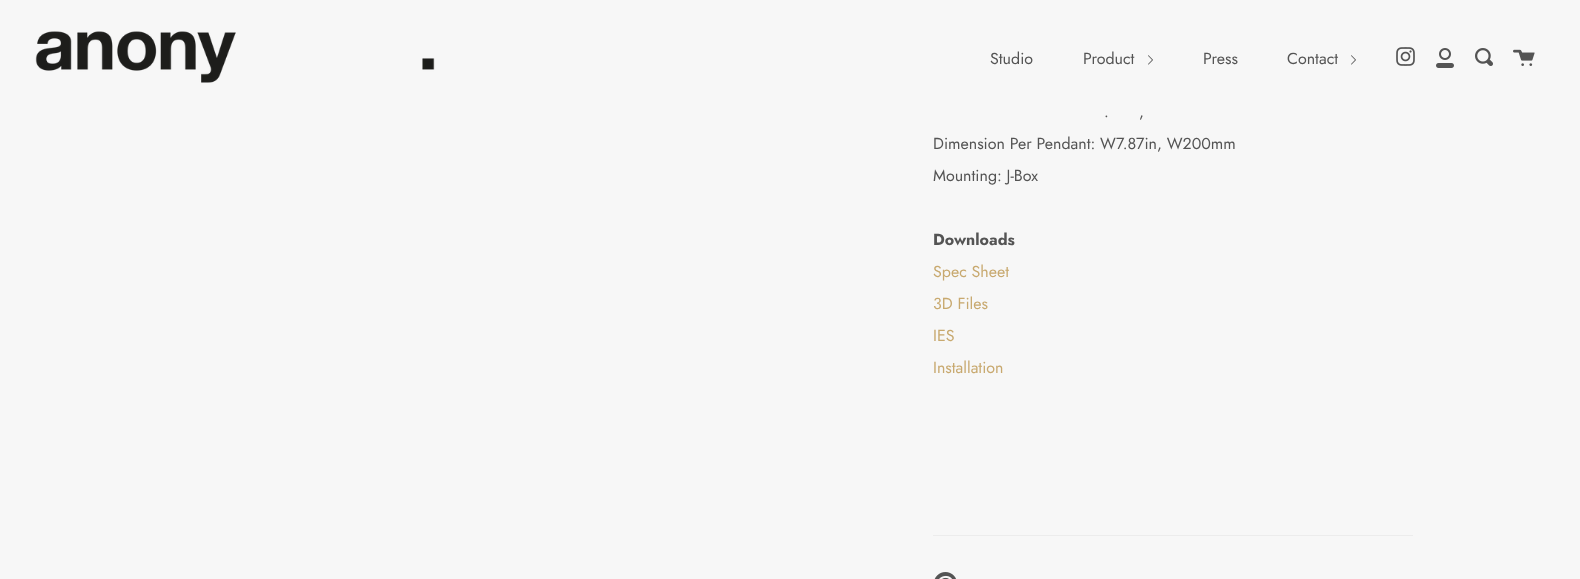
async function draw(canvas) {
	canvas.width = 1580;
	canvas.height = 579;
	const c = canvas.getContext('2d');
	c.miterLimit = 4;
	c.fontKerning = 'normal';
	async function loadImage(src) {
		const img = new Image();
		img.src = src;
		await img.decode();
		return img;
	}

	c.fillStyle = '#f7f7f7';
	c.fillRect(0, 0, 1580, 579);
	c.drawImage(await loadImage('img1.png'), 35, 31, 400, 52);
	c.font = '16px Jost';
	c.fillStyle = '#545454';
	c.fillText('Studio', 990, 64);
	c.fillText('Product', 1083, 64);
	c.drawImage(await loadImage('img2.png'), 1148, 55, 5, 10);
	c.fillText('Press', 1203, 64);
	c.fillText('Contact', 1287, 64);
	c.drawImage(await loadImage('img2.png'), 1351, 55, 5, 10);
	c.drawImage(await loadImage('img3.png'), 1396, 47, 19, 19);
	c.drawImage(await loadImage('img4.png'), 1436, 48, 18, 20);
	c.drawImage(await loadImage('img5.png'), 1475, 48, 18, 18);
	c.drawImage(await loadImage('img6.png'), 1513, 49, 22, 17);
	for (const [text, x, y] of [
		['.', 1104, 117],
		[',', 1139, 117],
		['Dimension Per Pendant: W7.87in, W200mm', 933, 149],
		['Mounting: J-Box', 933, 181],
	]) {
		c.fillText(text, x, y);
	}
	c.font = 'bold 16px Jost';
	c.fillText('Downloads', 933, 245);
	c.font = '16px Jost';
	c.fillStyle = '#c8a96f';
	for (const [text, x, y] of [
		['Spec Sheet', 933, 277],
		['3D Files', 933, 309],
		['IES', 933, 341],
		['Installation', 933, 373],
	]) {
		c.fillText(text, x, y);
	}
	c.fillStyle = '#ececec';
	c.fillRect(933, 535, 480, 1);
	c.drawImage(await loadImage('img7.png'), 934, 572, 22, 7);
}

draw(document.querySelector('canvas'));
